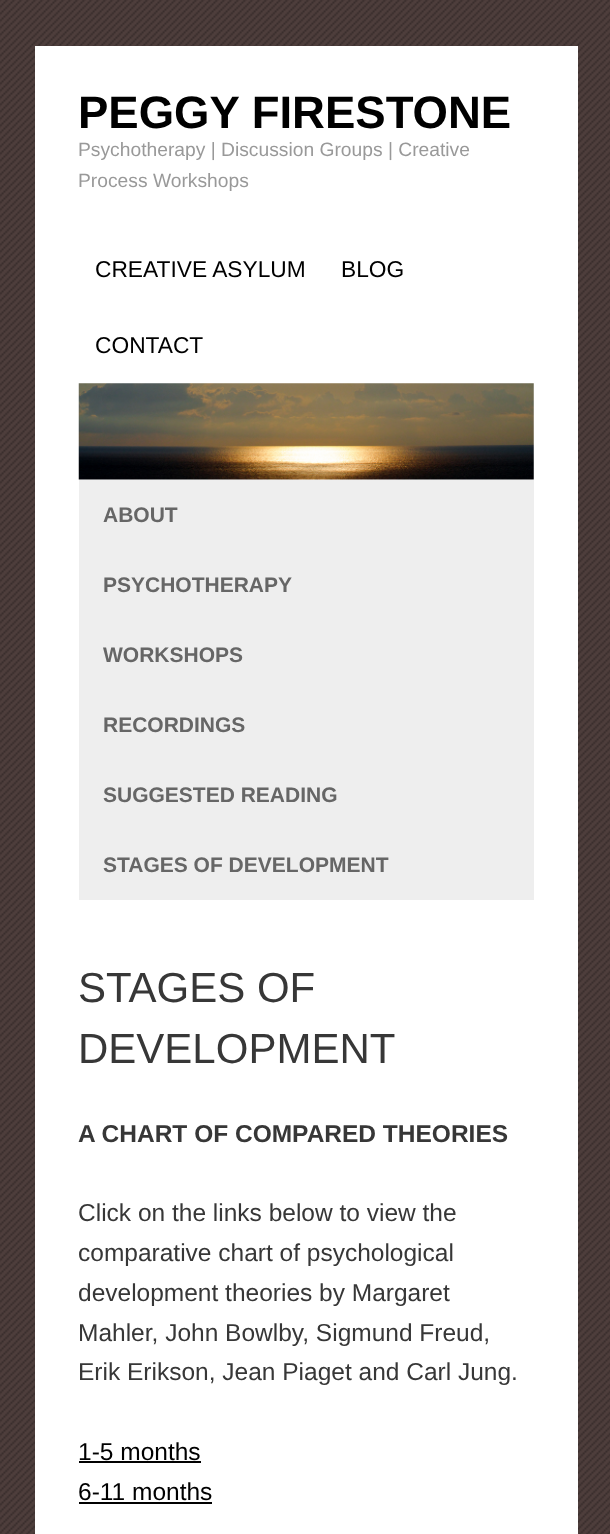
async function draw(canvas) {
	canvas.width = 610;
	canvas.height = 1534;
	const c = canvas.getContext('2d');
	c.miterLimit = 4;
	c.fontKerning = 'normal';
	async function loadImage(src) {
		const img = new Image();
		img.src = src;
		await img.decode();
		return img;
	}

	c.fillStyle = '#fff';
	c.fillRect(0, 0, 610, 1534);
	c.drawImage(await loadImage('img1.png'), 0, 0, 610, 1534);
	c.fillRect(35, 46, 543, 1488);
	c.font = 'bold 45.5px Liberation Sans';
	c.fillStyle = '#000';
	c.fillText('PEGGY FIRESTONE', 78, 128);
	c.font = '19.25px Liberation Sans';
	c.fillStyle = '#999';
	c.fillText('Psychotherapy | Discussion Groups | Creative', 78, 156);
	c.fillText('Process Workshops', 78, 187);
	c.font = '22.75px Liberation Sans';
	c.fillStyle = '#000';
	for (const [text, x, y] of [
		['CREATIVE ASYLUM', 95, 277],
		['BLOG', 341, 277],
		['CONTACT', 95, 353],
	]) {
		c.fillText(text, x, y);
	}
	c.drawImage(await loadImage('img2.png'), 78, 383, 456, 97);
	c.fillStyle = '#eee';
	c.fillRect(79, 480, 455, 420);
	c.font = 'bold 21px Liberation Sans';
	c.fillStyle = '#666';
	for (const [text, x, y] of [
		['ABOUT', 103, 522],
		['PSYCHOTHERAPY', 103, 592],
		['WORKSHOPS', 103, 662],
		['RECORDINGS', 103, 732],
		['SUGGESTED READING', 103, 802],
		['STAGES OF DEVELOPMENT', 103, 872],
	]) {
		c.fillText(text, x, y);
	}
	c.font = '42px Liberation Sans';
	c.fillStyle = '#373737';
	c.fillText('STAGES OF', 78, 1002);
	c.fillText('DEVELOPMENT', 78, 1063);
	c.font = 'bold 24.5px Liberation Sans';
	c.fillText('A CHART OF COMPARED THEORIES', 78, 1142);
	c.font = '24.5px Liberation Sans';
	for (const [text, x, y] of [
		['Click on the links below to view the', 78, 1221],
		['comparative chart of psychological', 78, 1261],
		['development theories by Margaret', 78, 1301],
		['Mahler, John Bowlby, Sigmund Freud,', 78, 1341],
		['Erik Erikson, Jean Piaget and Carl Jung.', 78, 1380],
	]) {
		c.fillText(text, x, y);
	}
	c.fillStyle = '#000';
	c.fillText('1-5 months', 78, 1460);
	c.fillRect(79, 1461, 122, 2);
	c.fillText('6-11 months', 78, 1500);
	c.fillRect(79, 1502, 133, 2);
}

draw(document.querySelector('canvas'));
